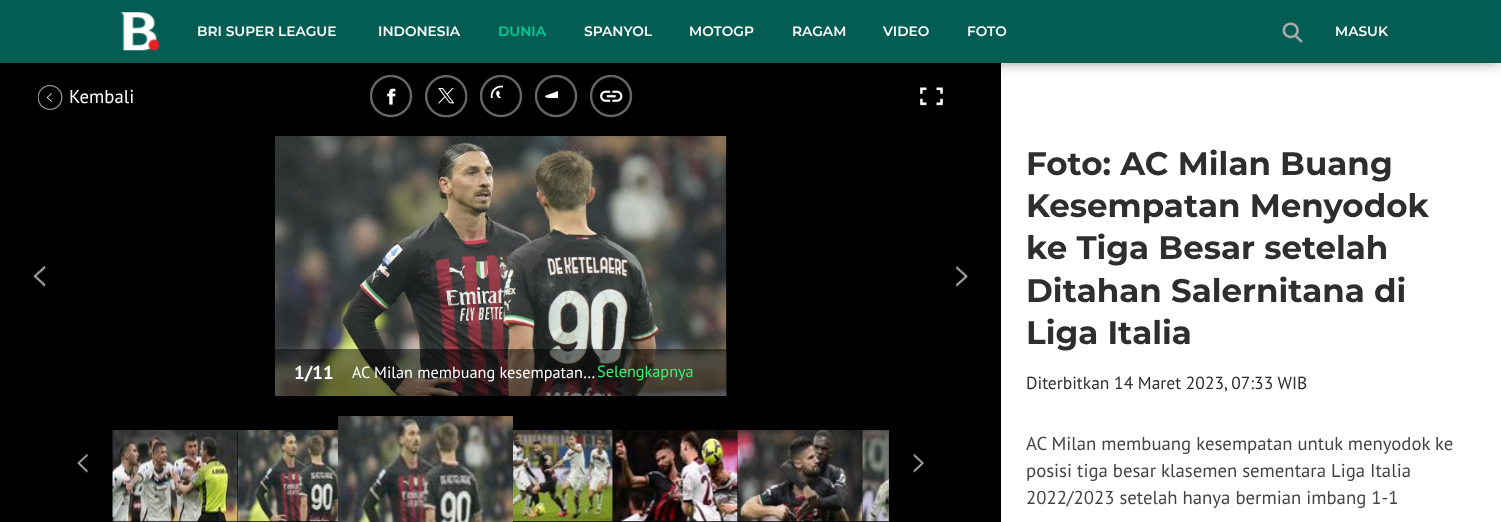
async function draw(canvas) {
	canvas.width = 1501;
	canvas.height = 522;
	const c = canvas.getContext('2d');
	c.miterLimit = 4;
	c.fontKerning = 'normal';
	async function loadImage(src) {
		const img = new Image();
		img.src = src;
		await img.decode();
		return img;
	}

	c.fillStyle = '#fff';
	c.fillRect(0, 0, 1501, 522);
	c.fillStyle = '#000';
	c.fillRect(0, 63, 1001, 459);
	c.drawImage(await loadImage('img4.png'), 370, 75, 43, 43);
	c.drawImage(await loadImage('img5.png'), 425, 75, 43, 43);
	c.drawImage(await loadImage('img6.png'), 480, 75, 43, 43);
	c.drawImage(await loadImage('img7.png'), 535, 75, 43, 43);
	c.drawImage(await loadImage('img8.png'), 590, 75, 43, 43);
	c.fillStyle = '#00000080';
	c.filter = 'blur(7.5px)';
	c.beginPath();
	c.rect(3, 4, 1496, 57);
	c.fill();
	c.filter = 'none';
	c.fillStyle = '#035d53';
	c.fillRect(0, 0, 1501, 63);
	c.drawImage(await loadImage('img1.png'), 120, 12, 40, 39);
	c.font = '600 13.75px Montserrat';
	c.fillStyle = '#fff';
	c.fillText('BRI SUPER LEAGUE', 197, 36);
	c.fillText('INDONESIA', 378, 36);
	c.fillStyle = '#00ce97';
	c.fillText('DUNIA', 498, 36);
	c.fillStyle = '#fff';
	for (const [text, x, y] of [
		['SPANYOL', 584, 36],
		['MOTOGP', 689, 36],
		['RAGAM', 792, 36],
		['VIDEO', 883, 36],
		['FOTO', 967, 36],
	]) {
		c.fillText(text, x, y);
	}
	c.drawImage(await loadImage('img2.png'), 1282, 22, 21, 21);
	c.fillText('MASUK', 1335, 36);
	c.drawImage(await loadImage('img3.png'), 38, 85, 25, 25);
	c.font = '18.75px PT Sans';
	c.fillText('Kembali', 69, 103);
	c.drawImage(await loadImage('img9.png'), 920, 87, 23, 19);
	c.drawImage(await loadImage('img10.png'), 33, 265, 13, 22);
	c.drawImage(await loadImage('img11.png'), 955, 265, 13, 23);
	c.drawImage(await loadImage('img12.png'), 275, 136, 452, 260);
	c.fillStyle = '#00000080';
	c.fillRect(275, 349, 451, 47);
	c.font = 'bold 18.75px PT Sans';
	c.fillStyle = '#fff';
	c.fillText('1/11', 294, 379);
	c.font = '16.25px PT Sans';
	c.fillText('AC Milan membuang kesempatan…', 352, 378);
	c.fillStyle = '#37f372';
	c.fillText('Selengkapnya', 597, 377);
	c.drawImage(await loadImage('img13.png'), 77, 453, 11, 20);
	c.drawImage(await loadImage('img14.png'), 112, 430, 126, 92);
	c.drawImage(await loadImage('img15.png'), 238, 430, 100, 92);
	c.drawImage(await loadImage('img16.png'), 338, 416, 175, 106);
	c.drawImage(await loadImage('img17.png'), 513, 430, 100, 92);
	c.drawImage(await loadImage('img18.png'), 613, 430, 125, 92);
	c.drawImage(await loadImage('img19.png'), 737, 430, 126, 92);
	c.drawImage(await loadImage('img20.png'), 862, 430, 27, 92);
	c.drawImage(await loadImage('img21.png'), 913, 453, 11, 20);
	c.font = 'bold 32.5px Montserrat';
	c.fillStyle = '#2e2e2e';
	for (const [text, x, y] of [
		['Foto: AC Milan Buang', 1026, 175],
		['Kesempatan Menyodok', 1026, 217],
		['ke Tiga Besar setelah', 1026, 259],
		['Ditahan Salernitana di', 1026, 302],
		['Liga Italia', 1026, 344],
	]) {
		c.fillText(text, x, y);
	}
	c.font = '17.5px PT Sans';
	c.fillText('Diterbitkan 14 Maret 2023, 07:33 WIB', 1026, 389);
	c.font = '18.75px PT Sans';
	c.fillStyle = '#444';
	for (const [text, x, y] of [
		['AC Milan membuang kesempatan untuk menyodok ke', 1026, 450],
		['posisi tiga besar klasemen sementara Liga Italia', 1026, 477],
		['2022/2023 setelah hanya bermian imbang 1-1', 1026, 504],
	]) {
		c.fillText(text, x, y);
	}
}

draw(document.querySelector('canvas'));
